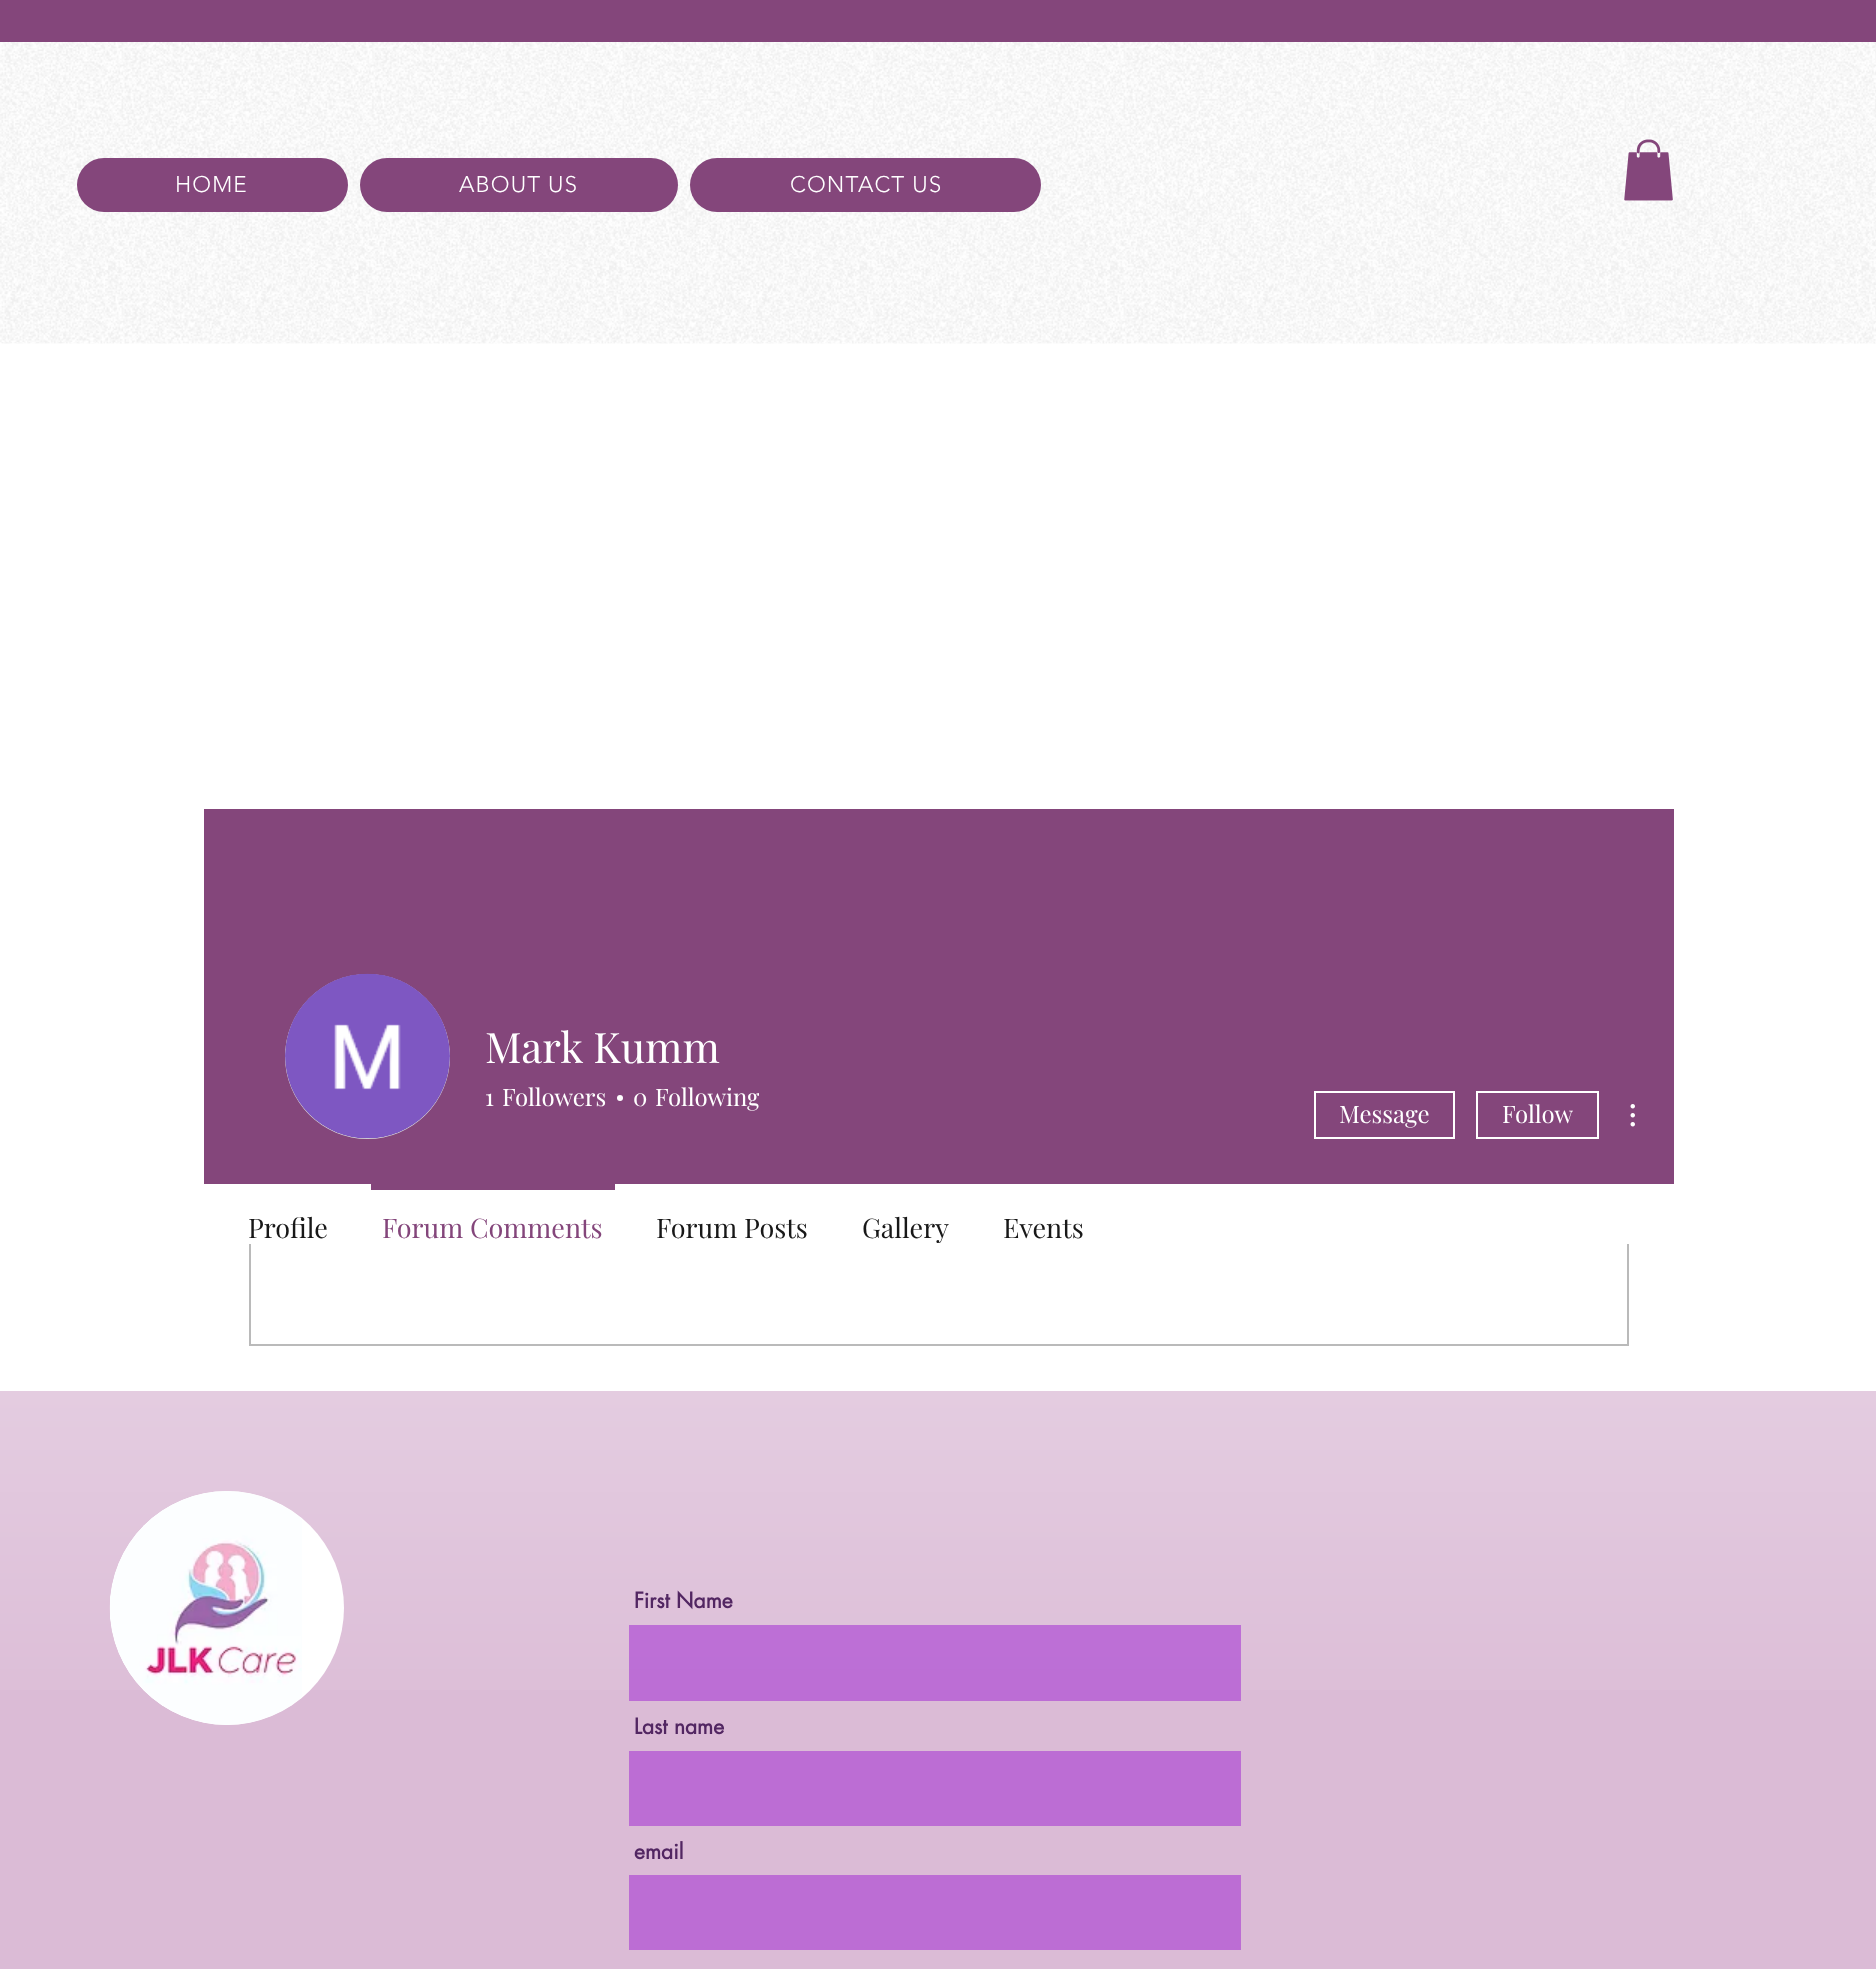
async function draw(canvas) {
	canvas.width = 1876;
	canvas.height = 1969;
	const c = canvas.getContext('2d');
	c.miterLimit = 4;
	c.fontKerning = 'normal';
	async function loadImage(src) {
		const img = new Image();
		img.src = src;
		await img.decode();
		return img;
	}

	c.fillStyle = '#fff';
	c.fillRect(0, 0, 1876, 1969);
	c.drawImage(await loadImage('img1.png'), 0, 42, 1876, 302);
	c.fillStyle = '#84467b';
	c.fillRect(0, 0, 1876, 42);
	c.beginPath();
	c.roundRect(77, 158, 271, 54, 27);
	c.fill();
	c.letterSpacing = '1.1px';
	c.font = '300 22.5px "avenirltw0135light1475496"';
	c.fillStyle = '#fff';
	c.fillText('HOME', 175, 192);
	c.fillStyle = '#84467b';
	c.beginPath();
	c.roundRect(360, 158, 318, 54, 27);
	c.fill();
	c.fillStyle = '#fff';
	c.fillText('ABOUT US', 459, 192);
	c.fillStyle = '#84467b';
	c.beginPath();
	c.roundRect(690, 158, 351, 54, 27);
	c.fill();
	c.fillStyle = '#fff';
	c.fillText('CONTACT US', 790, 192);
	c.drawImage(await loadImage('img2.png'), 1624, 139, 49, 62);
	c.strokeStyle = '#bababa';
	c.lineWidth = 2;
	c.strokeRect(250, 897, 1378, 448);
	c.fillStyle = '#84467b';
	c.fillRect(204, 809, 1470, 375);
	c.fillStyle = '#d8d8d8';
	c.beginPath();
	c.arc(367.5, 1056.5, 82.5, 0, 2 * Math.PI);
	c.fill();
	c.drawImage(await loadImage('img3.png'), 285, 973, 165, 166);
	c.letterSpacing = '0px';
	c.font = '42px Playfair Display';
	c.fillStyle = '#fff';
	c.fillText('Mark Kumm', 485, 1063);
	c.font = '24px Playfair Display';
	c.fillText('1', 485, 1106);
	c.fillText('Followers', 502, 1106);
	c.beginPath();
	c.arc(620, 1098, 3, 0, 2 * Math.PI);
	c.fill();
	c.fillText('0', 633, 1106);
	c.save();
	c.beginPath();
	c.rect(656, 1082, 103, 33);
	c.clip();
	c.fillText('Following', 655, 1106);
	c.restore();
	c.strokeStyle = '#fff';
	c.strokeRect(1315, 1092, 139, 46);
	c.fillText('Message', 1339, 1123);
	c.strokeRect(1477, 1092, 121, 46);
	c.fillText('Follow', 1502, 1123);
	c.drawImage(await loadImage('img4.png'), 1630, 1104, 5, 23);
	c.fillRect(249, 1184, 1380, 60);
	c.font = '27px Playfair Display';
	c.fillStyle = '#181818';
	c.fillText('Profile', 248, 1238);
	c.fillStyle = '#84467b';
	c.fillRect(371, 1184, 244, 6);
	c.fillText('Forum Comments', 382, 1238);
	c.fillStyle = '#181818';
	for (const [text, x, y] of [
		['Forum Posts', 656, 1238],
		['Gallery', 862, 1238],
		['Events', 1003, 1238],
	]) {
		c.fillText(text, x, y);
	}
	c.fillStyle = '#dbbbd6';
	c.fillRect(0, 1391, 1876, 578);
	c.drawImage(await loadImage('img5.png'), 0, 1391, 1876, 299);
	c.fillStyle = '#fff';
	c.beginPath();
	c.arc(227, 1608, 117, 0, 2 * Math.PI);
	c.fill();
	c.drawImage(await loadImage('img6.png'), 109, 1491, 193, 234);
	c.font = 'bold 21px futura';
	c.fillStyle = '#522662';
	c.fillText('First Name', 634, 1608);
	c.fillStyle = '#b45ad4cc';
	c.fillRect(629, 1625, 612, 76);
	c.fillStyle = '#522662';
	c.fillText('Last name', 634, 1734);
	c.fillStyle = '#bc6dd4';
	c.fillRect(629, 1751, 612, 75);
	c.fillStyle = '#522662';
	c.fillText('email', 634, 1859);
	c.fillStyle = '#bc6dd4';
	c.fillRect(629, 1875, 612, 75);
}

draw(document.querySelector('canvas'));
